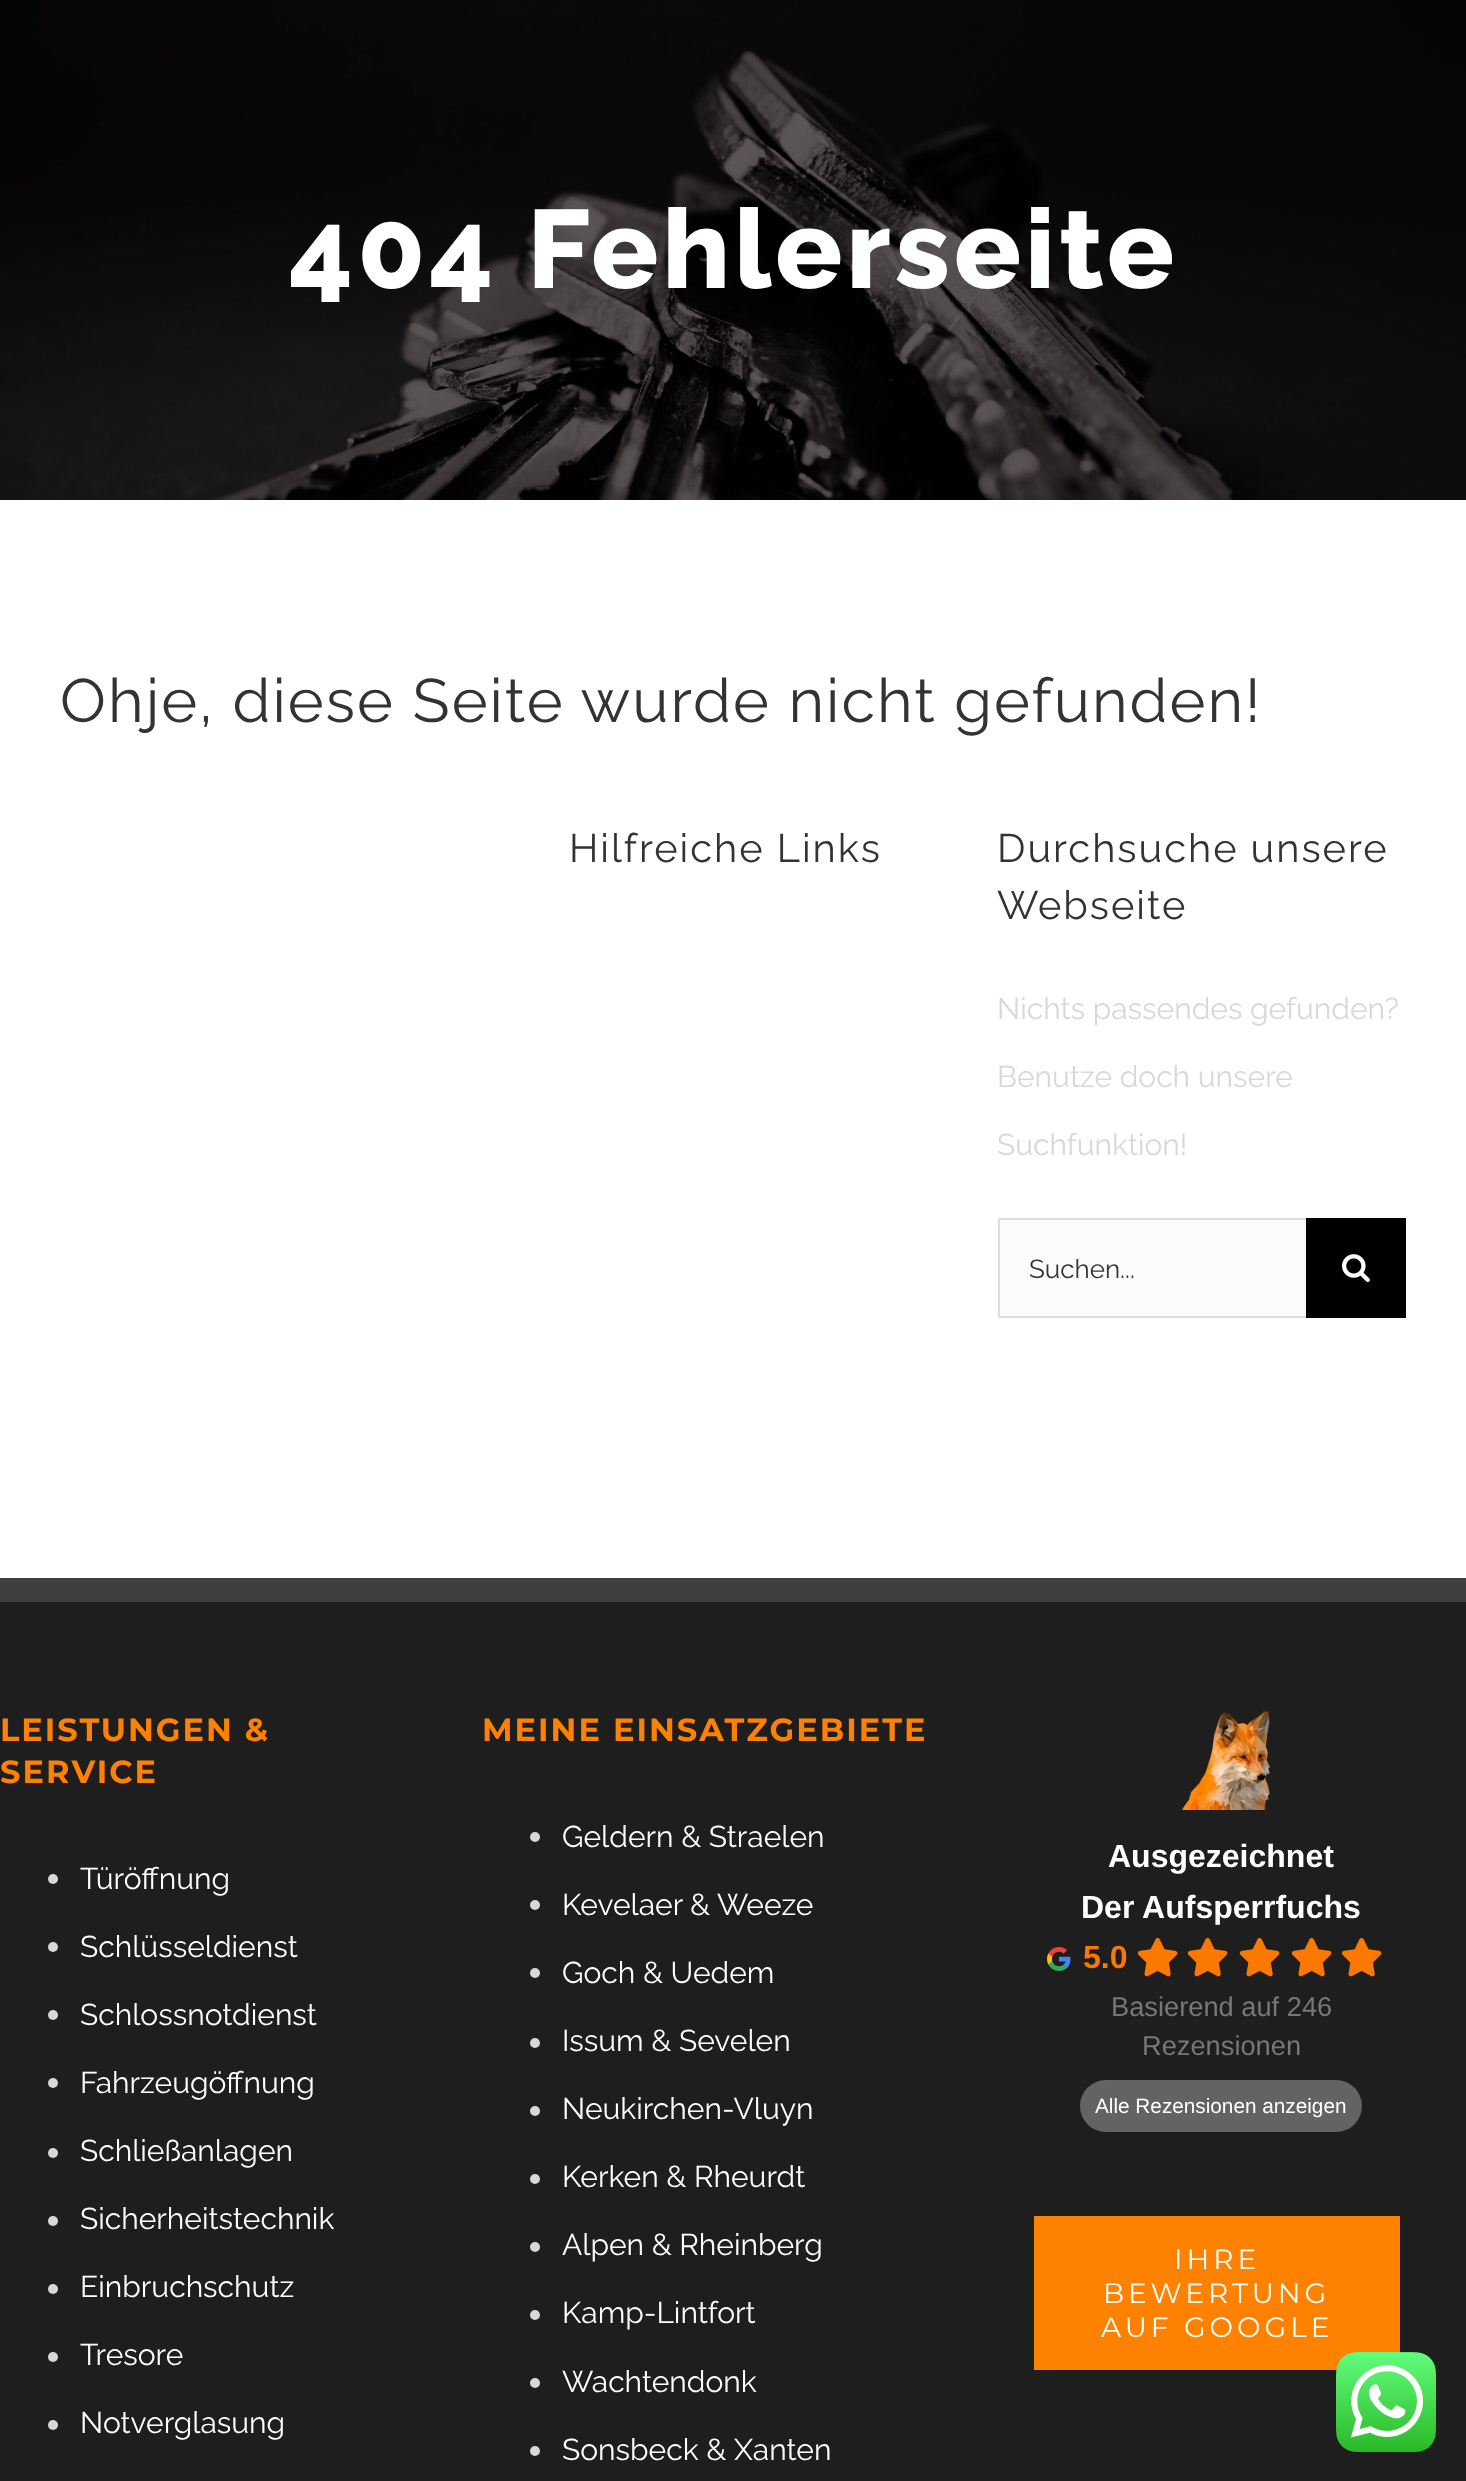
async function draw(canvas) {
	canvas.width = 1466;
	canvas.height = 2481;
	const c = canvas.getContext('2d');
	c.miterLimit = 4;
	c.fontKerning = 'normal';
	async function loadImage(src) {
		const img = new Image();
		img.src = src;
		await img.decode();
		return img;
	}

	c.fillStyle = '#fff';
	c.fillRect(0, 0, 1466, 2481);
	c.drawImage(await loadImage('img1.png'), 0, 0, 1466, 500);
	c.letterSpacing = '4px';
	c.font = '800 111px Raleway';
	c.fillText('404 Fehlerseite', 289, 288);
	c.letterSpacing = '2px';
	c.font = '61.1px Raleway';
	c.fillStyle = '#333';
	c.fillText('Ohje, diese Seite wurde nicht gefunden!', 60, 722);
	c.font = '39.75px Raleway';
	for (const [text, x, y] of [
		['Hilfreiche Links', 569, 862],
		['Durchsuche unsere', 997, 862],
		['Webseite', 997, 919],
	]) {
		c.fillText(text, x, y);
	}
	c.letterSpacing = '0px';
	c.font = '30px Raleway';
	c.fillStyle = '#d8d8d8';
	for (const [text, x, y] of [
		['Nichts passendes gefunden?', 997, 1019],
		['Benutze doch unsere', 997, 1087],
		['Suchfunktion!', 997, 1155],
	]) {
		c.fillText(text, x, y);
	}
	for (const [x, y, w, h, color] of [
		[1000, 1220, 306, 96, '#fbfbfb'],
		[998, 1218, 308, 2, '#ddd'],
		[998, 1316, 308, 2, '#ddd'],
		[998, 1218, 2, 100, '#ddd'],
	]) {
		c.fillStyle = color;
		c.fillRect(x, y, w, h);
	}
	c.font = '26px Raleway';
	c.fillStyle = '#333';
	c.fillText('Suchen...', 1029, 1278);
	c.fillStyle = '#000';
	c.fillRect(1306, 1218, 100, 100);
	c.drawImage(await loadImage('img2.png'), 1342, 1254, 28, 28);
	c.fillStyle = '#1e1e1e';
	c.fillRect(0, 1602, 1466, 879);
	c.fillStyle = '#3f3f3f';
	c.fillRect(0, 1578, 1466, 24);
	c.letterSpacing = '2px';
	c.font = 'bold 32px Montserrat';
	c.fillStyle = '#ff8100';
	c.fillText('LEISTUNGEN &', 0, 1741);
	c.fillText('SERVICE', 0, 1783);
	c.fillStyle = '#d8d8d8';
	c.beginPath();
	c.arc(53, 1879, 5, 0, 2 * Math.PI);
	c.fill();
	c.letterSpacing = '0px';
	c.font = '30px Raleway';
	c.fillStyle = '#fff';
	c.fillText('Türöffnung', 80, 1889);
	c.fillStyle = '#d8d8d8';
	c.beginPath();
	c.arc(53, 1947, 5, 0, 2 * Math.PI);
	c.fill();
	c.fillStyle = '#fff';
	c.fillText('Schlüsseldienst', 80, 1957);
	c.fillStyle = '#d8d8d8';
	c.beginPath();
	c.arc(53, 2015, 5, 0, 2 * Math.PI);
	c.fill();
	c.fillStyle = '#fff';
	c.fillText('Schlossnotdienst', 80, 2025);
	c.fillStyle = '#d8d8d8';
	c.beginPath();
	c.arc(53, 2083, 5, 0, 2 * Math.PI);
	c.fill();
	c.fillStyle = '#fff';
	c.fillText('Fahrzeugöffnung', 80, 2093);
	c.fillStyle = '#d8d8d8';
	c.beginPath();
	c.arc(53, 2153, 5, 0, 2 * Math.PI);
	c.fill();
	c.fillStyle = '#fff';
	c.fillText('Schließanlagen', 80, 2161);
	c.fillStyle = '#d8d8d8';
	c.beginPath();
	c.arc(53, 2221, 5, 0, 2 * Math.PI);
	c.fill();
	c.fillStyle = '#fff';
	c.fillText('Sicherheitstechnik', 80, 2229);
	c.fillStyle = '#d8d8d8';
	c.beginPath();
	c.arc(53, 2289, 5, 0, 2 * Math.PI);
	c.fill();
	c.fillStyle = '#fff';
	c.fillText('Einbruchschutz', 80, 2297);
	c.fillStyle = '#d8d8d8';
	c.beginPath();
	c.arc(53, 2357, 5, 0, 2 * Math.PI);
	c.fill();
	c.fillStyle = '#fff';
	c.fillText('Tresore', 80, 2365);
	c.fillStyle = '#d8d8d8';
	c.beginPath();
	c.arc(53, 2425, 5, 0, 2 * Math.PI);
	c.fill();
	c.fillStyle = '#fff';
	c.fillText('Notverglasung', 80, 2433);
	c.letterSpacing = '2px';
	c.font = 'bold 32px Montserrat';
	c.fillStyle = '#ff8100';
	c.fillText('MEINE EINSATZGEBIETE', 482, 1741);
	c.fillStyle = '#d8d8d8';
	c.beginPath();
	c.arc(535, 1837, 5, 0, 2 * Math.PI);
	c.fill();
	c.letterSpacing = '0px';
	c.font = '30px Raleway';
	c.fillStyle = '#fff';
	c.fillText('Geldern & Straelen', 562, 1847);
	c.fillStyle = '#d8d8d8';
	c.beginPath();
	c.arc(535, 1905, 5, 0, 2 * Math.PI);
	c.fill();
	c.fillStyle = '#fff';
	for (const [text, x, y] of [
		['Kevelaer', 562, 1915],
		['&', 690, 1915],
		['Weeze', 717, 1915],
	]) {
		c.fillText(text, x, y);
	}
	c.fillStyle = '#d8d8d8';
	c.beginPath();
	c.arc(535, 1973, 5, 0, 2 * Math.PI);
	c.fill();
	c.fillStyle = '#fff';
	c.fillText('Goch & Uedem', 562, 1983);
	c.fillStyle = '#d8d8d8';
	c.beginPath();
	c.arc(535, 2043, 5, 0, 2 * Math.PI);
	c.fill();
	c.fillStyle = '#fff';
	c.fillText('Issum & Sevelen', 562, 2051);
	c.fillStyle = '#d8d8d8';
	c.beginPath();
	c.arc(535, 2111, 5, 0, 2 * Math.PI);
	c.fill();
	c.fillStyle = '#fff';
	c.fillText('Neukirchen-Vluyn', 562, 2119);
	c.fillStyle = '#d8d8d8';
	c.beginPath();
	c.arc(535, 2179, 5, 0, 2 * Math.PI);
	c.fill();
	c.fillStyle = '#fff';
	c.fillText('Kerken & Rheurdt', 562, 2187);
	c.fillStyle = '#d8d8d8';
	c.beginPath();
	c.arc(535, 2247, 5, 0, 2 * Math.PI);
	c.fill();
	c.fillStyle = '#fff';
	c.fillText('Alpen & Rheinberg', 562, 2255);
	c.fillStyle = '#d8d8d8';
	c.beginPath();
	c.arc(535, 2315, 5, 0, 2 * Math.PI);
	c.fill();
	c.fillStyle = '#fff';
	c.fillText('Kamp-Lintfort', 562, 2323);
	c.fillStyle = '#d8d8d8';
	c.beginPath();
	c.arc(535, 2383, 5, 0, 2 * Math.PI);
	c.fill();
	c.fillStyle = '#fff';
	c.fillText('Wachtendonk', 562, 2392);
	c.fillStyle = '#d8d8d8';
	c.beginPath();
	c.arc(535, 2451, 5, 0, 2 * Math.PI);
	c.fill();
	c.fillStyle = '#fff';
	c.fillText('Sonsbeck &', 562, 2460);
	c.fillText('Xanten', 734, 2460);
	c.drawImage(await loadImage('img3.png'), 1181, 1710, 89, 100);
	c.font = 'bold 32px Liberation Sans';
	c.fillText('Ausgezeichnet', 1108, 1867);
	c.fillText('Der Aufsperrfuchs', 1081, 1918);
	c.drawImage(await loadImage('img4.png'), 1047, 1947, 24, 24);
	c.fillStyle = '#fb7900';
	c.fillText('5.0', 1083, 1968);
	c.drawImage(await loadImage('img5.png'), 1137, 1938, 41, 39);
	c.drawImage(await loadImage('img5.png'), 1187, 1938, 41, 39);
	c.drawImage(await loadImage('img5.png'), 1239, 1938, 41, 39);
	c.drawImage(await loadImage('img5.png'), 1291, 1938, 41, 39);
	c.drawImage(await loadImage('img5.png'), 1341, 1938, 41, 39);
	c.font = '27.25px Liberation Sans';
	c.fillStyle = '#777';
	c.fillText('Basierend auf 246', 1111, 2016);
	c.fillText('Rezensionen', 1142, 2055);
	c.fillStyle = '#636363';
	c.beginPath();
	c.roundRect(1080, 2080, 282, 52, 26);
	c.fill();
	c.font = '20.75px Liberation Sans';
	c.fillStyle = '#fff';
	c.fillText('Alle Rezensionen anzeigen', 1095, 2113);
	c.fillStyle = '#ff8100';
	c.fillRect(1034, 2216, 366, 154);
	c.letterSpacing = '4px';
	c.font = '28px Montserrat';
	c.fillStyle = '#fff';
	for (const [text, x, y] of [
		['IHRE', 1174, 2269],
		['BEWERTUNG', 1103, 2303],
		['AUF GOOGLE', 1101, 2337],
	]) {
		c.fillText(text, x, y);
	}
	c.drawImage(await loadImage('img6.png'), 1336, 2352, 100, 100);
}

draw(document.querySelector('canvas'));
